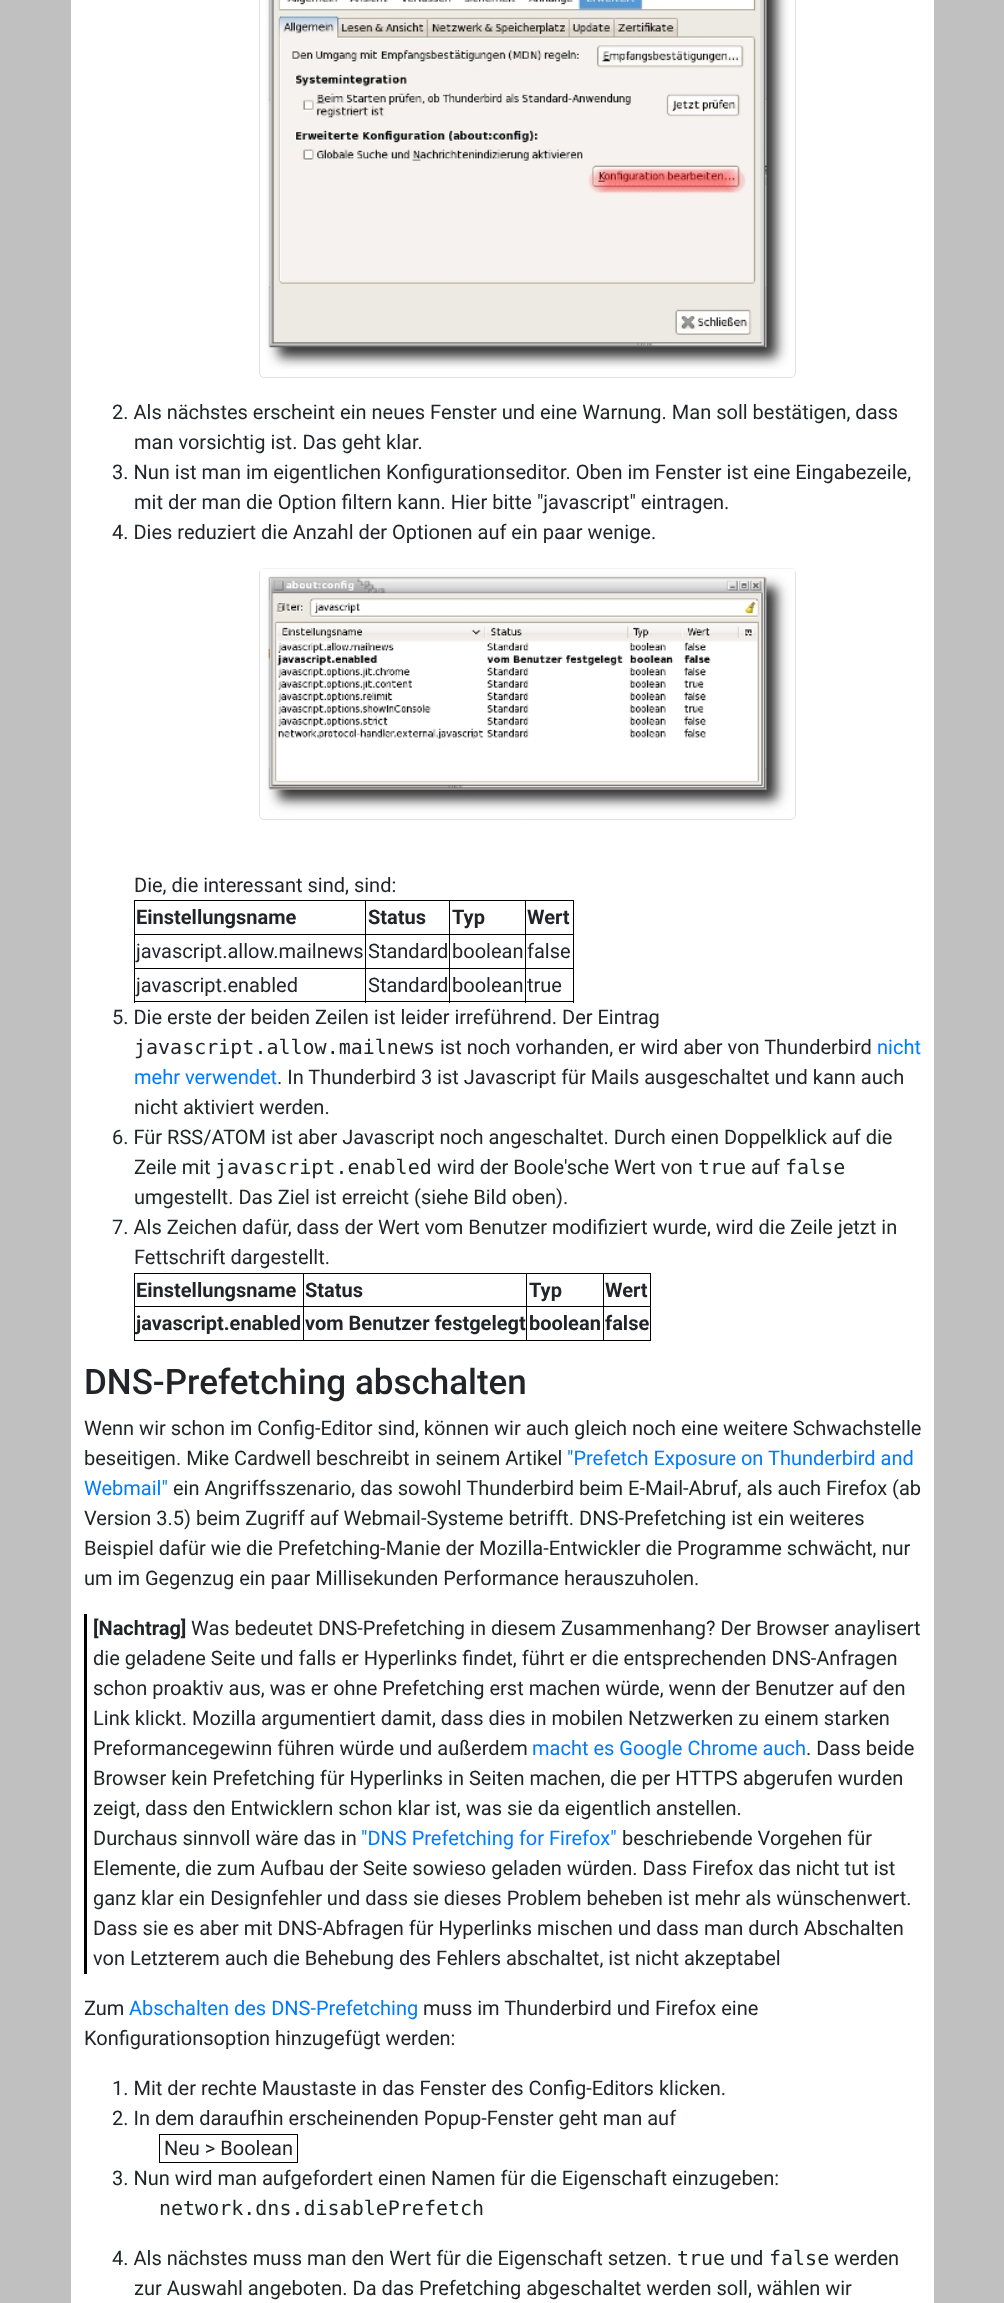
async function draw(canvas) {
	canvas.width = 1004;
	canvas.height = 2303;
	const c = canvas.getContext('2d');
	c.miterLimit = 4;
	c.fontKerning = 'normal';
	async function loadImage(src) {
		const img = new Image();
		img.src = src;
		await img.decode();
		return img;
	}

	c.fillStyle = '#c0c0c0';
	c.fillRect(0, 0, 1004, 2303);
	c.fillStyle = '#fff';
	c.fillRect(71, 0, 863, 2303);
	c.beginPath();
	c.roundRect(259.5, -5.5, 536, 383, 4.5);
	c.strokeStyle = '#dee2e6';
	c.stroke();
	c.drawImage(await loadImage('img1.png'), 266, 0, 523, 369);
	c.font = '20px Roboto';
	c.fillStyle = '#212529';
	for (const [text, x, y] of [
		['2. Als nächstes erscheint ein neues Fenster und eine Warnung. Man soll bestätigen, dass', 112, 419],
		['man vorsichtig ist. Das geht klar.', 134, 449],
		['3. Nun ist man im eigentlichen Konfigurationseditor. Oben im Fenster ist eine Eingabezeile,', 112, 479],
		['mit der man die Option filtern kann. Hier bitte "javascript" eintragen.', 134, 509],
		['4. Dies reduziert die Anzahl der Optionen auf ein paar wenige.', 112, 539],
	]) {
		c.fillText(text, x, y);
	}
	c.beginPath();
	c.roundRect(259.5, 568.5, 536, 251, 4.5);
	c.stroke();
	c.drawImage(await loadImage('img2.png'), 260, 568, 535, 249);
	c.fillText('Die, die interessant sind, sind:', 134, 892);
	for (const [x, y, w, h, color] of [
		[525, 900, 49, 1, '#000'],
		[525, 934, 49, 1, '#000'],
		[525, 968, 49, 1, '#000'],
		[573, 968, 1, 35, '#000'],
		[525, 1001, 49, 1, '#000'],
		[525, 968, 1, 35, '#000'],
		[449, 968, 77, 1, '#000'],
		[525, 934, 1, 35, '#000'],
		[449, 934, 77, 1, '#000'],
		[525, 900, 1, 35, '#000'],
		[449, 900, 77, 1, '#000'],
		[449, 1001, 77, 1, '#000'],
		[449, 968, 1, 35, '#000'],
		[365, 968, 85, 1, '#000'],
		[449, 934, 1, 35, '#000'],
		[365, 934, 85, 1, '#000'],
		[449, 900, 1, 35, '#000'],
		[365, 900, 85, 1, '#000'],
		[365, 1001, 85, 1, '#000'],
		[365, 968, 1, 35, '#000'],
		[134, 968, 232, 1, '#000'],
		[365, 934, 1, 35, '#000'],
		[134, 934, 232, 1, '#000'],
		[365, 900, 1, 35, '#000'],
		[134, 900, 232, 1, '#000'],
		[134, 1001, 232, 1, '#000'],
		[134, 968, 1, 35, '#000'],
		[134, 934, 1, 35, '#000'],
		[134, 900, 1, 35, '#000'],
	]) {
		c.fillStyle = color;
		c.fillRect(x, y, w, h);
	}
	c.font = 'bold 20px Roboto';
	c.fillStyle = '#212529';
	for (const [text, x, y] of [
		['Einstellungsname', 136, 924],
		['Status', 368, 924],
		['Typ', 452, 924],
	]) {
		c.fillText(text, x, y);
	}
	c.fillStyle = '#000';
	c.fillRect(573, 934, 1, 35);
	c.fillRect(573, 900, 1, 35);
	c.fillStyle = '#212529';
	c.fillText('Wert', 527, 924);
	c.font = '20px Roboto';
	for (const [text, x, y] of [
		['javascript.allow.mailnews', 136, 958],
		['Standard', 368, 958],
		['boolean', 452, 958],
		['false', 527, 958],
		['javascript.enabled', 136, 992],
		['Standard', 368, 992],
		['boolean', 452, 992],
		['true', 527, 992],
		['5. Die erste der beiden Zeilen ist leider irreführend. Der Eintrag', 112, 1024],
	]) {
		c.fillText(text, x, y);
	}
	c.font = '20px DejaVu Sans Mono';
	c.fillText('javascript.allow.mailnews', 134, 1054);
	c.font = '20px Roboto';
	c.fillText('ist noch vorhanden, er wird aber von Thunderbird', 440, 1054);
	c.fillStyle = '#007bff';
	c.fillText('nicht', 877, 1054);
	c.fillText('mehr verwendet', 134, 1084);
	c.fillStyle = '#212529';
	for (const [text, x, y] of [
		['. In Thunderbird 3 ist Javascript für Mails ausgeschaltet und kann auch', 277, 1084],
		['nicht aktiviert werden.', 134, 1114],
		['6. Für RSS/ATOM ist aber Javascript noch angeschaltet. Durch einen Doppelklick auf die', 112, 1144],
		['Zeile mit', 134, 1174],
	]) {
		c.fillText(text, x, y);
	}
	c.font = '20px DejaVu Sans Mono';
	c.fillText('javascript.enabled', 215, 1174);
	c.font = '20px Roboto';
	c.fillText('wird der Boole\'sche Wert von', 437, 1174);
	c.font = '20px DejaVu Sans Mono';
	c.fillText('true', 698, 1174);
	c.font = '20px Roboto';
	c.fillText('auf', 751, 1174);
	c.font = '20px DejaVu Sans Mono';
	c.fillText('false', 785, 1174);
	c.font = '20px Roboto';
	for (const [text, x, y] of [
		['umgestellt. Das Ziel ist erreicht (siehe Bild oben).', 134, 1204],
		['7. Als Zeichen dafür, dass der Wert vom Benutzer modifiziert wurde, wird die Zeile jetzt in', 112, 1234],
		['Fettschrift dargestellt.', 134, 1264],
	]) {
		c.fillText(text, x, y);
	}
	for (const [x, y, w, h, color] of [
		[603, 1273, 48, 1, '#000'],
		[603, 1306, 48, 1, '#000'],
		[650, 1306, 1, 35, '#000'],
		[603, 1340, 48, 1, '#000'],
		[603, 1306, 1, 35, '#000'],
		[526, 1306, 78, 1, '#000'],
		[603, 1273, 1, 35, '#000'],
		[526, 1273, 78, 1, '#000'],
		[526, 1340, 78, 1, '#000'],
		[526, 1306, 1, 35, '#000'],
		[303, 1306, 225, 1, '#000'],
		[526, 1273, 1, 35, '#000'],
		[303, 1273, 225, 1, '#000'],
		[303, 1340, 225, 1, '#000'],
		[303, 1306, 1, 35, '#000'],
		[134, 1306, 170, 1, '#000'],
		[303, 1273, 1, 35, '#000'],
		[134, 1273, 170, 1, '#000'],
		[134, 1340, 170, 1, '#000'],
		[134, 1306, 1, 35, '#000'],
		[134, 1273, 1, 35, '#000'],
	]) {
		c.fillStyle = color;
		c.fillRect(x, y, w, h);
	}
	c.font = 'bold 20px Roboto';
	c.fillStyle = '#212529';
	for (const [text, x, y] of [
		['Einstellungsname', 136, 1297],
		['Status', 305, 1297],
		['Typ', 529, 1297],
	]) {
		c.fillText(text, x, y);
	}
	c.fillStyle = '#000';
	c.fillRect(650, 1273, 1, 35);
	c.fillStyle = '#212529';
	for (const [text, x, y] of [
		['Wert', 605, 1297],
		['javascript.enabled', 136, 1330],
		['vom Benutzer festgelegt', 305, 1330],
		['boolean', 529, 1330],
		['false', 605, 1330],
	]) {
		c.fillText(text, x, y);
	}
	c.font = '500 35px Roboto';
	c.fillText('DNS-Prefetching abschalten', 84, 1394);
	c.font = '20px Roboto';
	c.fillText('Wenn wir schon im Config-Editor sind, können wir auch gleich noch eine weitere Schwachstelle', 84, 1435);
	c.fillText('beseitigen. Mike Cardwell beschreibt in seinem Artikel', 84, 1465);
	c.fillStyle = '#007bff';
	c.fillText('"Prefetch Exposure on Thunderbird and', 567, 1465);
	c.fillText('Webmail"', 84, 1495);
	c.fillStyle = '#212529';
	for (const [text, x, y] of [
		['ein Angriffsszenario, das sowohl Thunderbird beim E-Mail-Abruf, als auch Firefox (ab', 173, 1495],
		['Version 3.5) beim Zugriff auf Webmail-Systeme betrifft. DNS-Prefetching ist ein weiteres', 84, 1525],
		['Beispiel dafür wie die Prefetching-Manie der Mozilla-Entwickler die Programme schwächt, nur', 84, 1555],
		['um im Gegenzug ein paar Millisekunden Performance herauszuholen.', 84, 1585],
	]) {
		c.fillText(text, x, y);
	}
	c.fillStyle = '#000';
	c.fillRect(84, 1614, 3, 360);
	c.font = 'bold 20px Roboto';
	c.fillStyle = '#212529';
	c.fillText('[Nachtrag]', 93, 1635);
	c.font = '20px Roboto';
	for (const [text, x, y] of [
		['Was bedeutet DNS-Prefetching in diesem Zusammenhang? Der Browser anaylisert', 191, 1635],
		['die geladene Seite und falls er Hyperlinks findet, führt er die entsprechenden DNS-Anfragen', 93, 1665],
		['schon proaktiv aus, was er ohne Prefetching erst machen würde, wenn der Benutzer auf den', 93, 1695],
		['Link klickt. Mozilla argumentiert damit, dass dies in mobilen Netzwerken zu einem starken', 93, 1725],
		['Preformancegewinn führen würde und außerdem', 93, 1755],
	]) {
		c.fillText(text, x, y);
	}
	c.fillStyle = '#007bff';
	c.fillText('macht es Google Chrome auch', 532, 1755);
	c.fillStyle = '#212529';
	for (const [text, x, y] of [
		['. Dass beide', 806, 1755],
		['Browser kein Prefetching für Hyperlinks in Seiten machen, die per HTTPS abgerufen wurden', 93, 1785],
		['zeigt, dass den Entwicklern schon klar ist, was sie da eigentlich anstellen.', 93, 1815],
		['Durchaus sinnvoll wäre das in', 93, 1845],
	]) {
		c.fillText(text, x, y);
	}
	c.fillStyle = '#007bff';
	c.fillText('"DNS Prefetching for Firefox"', 361, 1845);
	c.fillStyle = '#212529';
	for (const [text, x, y] of [
		['beschriebende Vorgehen für', 622, 1845],
		['Elemente, die zum Aufbau der Seite sowieso geladen würden. Dass Firefox das nicht tut ist', 93, 1875],
		['ganz klar ein Designfehler und dass sie dieses Problem beheben ist mehr als wünschenwert.', 93, 1905],
		['Dass sie es aber mit DNS-Abfragen für Hyperlinks mischen und dass man durch Abschalten', 93, 1935],
		['von Letzterem auch die Behebung des Fehlers abschaltet, ist nicht akzeptabel', 93, 1965],
		['Zum', 84, 2015],
	]) {
		c.fillText(text, x, y);
	}
	c.fillStyle = '#007bff';
	c.fillText('Abschalten des DNS-Prefetching', 129, 2015);
	c.fillStyle = '#212529';
	for (const [text, x, y] of [
		['muss im Thunderbird und Firefox eine', 423, 2015],
		['Konfigurationsoption hinzugefügt werden:', 84, 2045],
		['1. Mit der rechte Maustaste in das Fenster des Config-Editors klicken.', 112, 2095],
		['2. In dem daraufhin erscheinenden Popup-Fenster geht man auf', 112, 2125],
	]) {
		c.fillText(text, x, y);
	}
	c.strokeStyle = '#000';
	c.strokeRect(159.5, 2134.5, 138, 28);
	c.fillText('Neu > Boolean', 164, 2155);
	c.fillText('3. Nun wird man aufgefordert einen Namen für die Eigenschaft einzugeben:', 112, 2185);
	c.font = '20px DejaVu Sans Mono';
	c.fillText('network.dns.disablePrefetch', 159, 2215);
	c.font = '20px Roboto';
	c.fillText('4. Als nächstes muss man den Wert für die Eigenschaft setzen.', 112, 2265);
	c.font = '20px DejaVu Sans Mono';
	c.fillText('true', 677, 2265);
	c.font = '20px Roboto';
	c.fillText('und', 730, 2265);
	c.font = '20px DejaVu Sans Mono';
	c.fillText('false', 769, 2265);
	c.font = '20px Roboto';
	c.fillText('werden', 834, 2265);
	c.fillText('zur Auswahl angeboten. Da das Prefetching abgeschaltet werden soll, wählen wir', 134, 2295);
}

draw(document.querySelector('canvas'));
